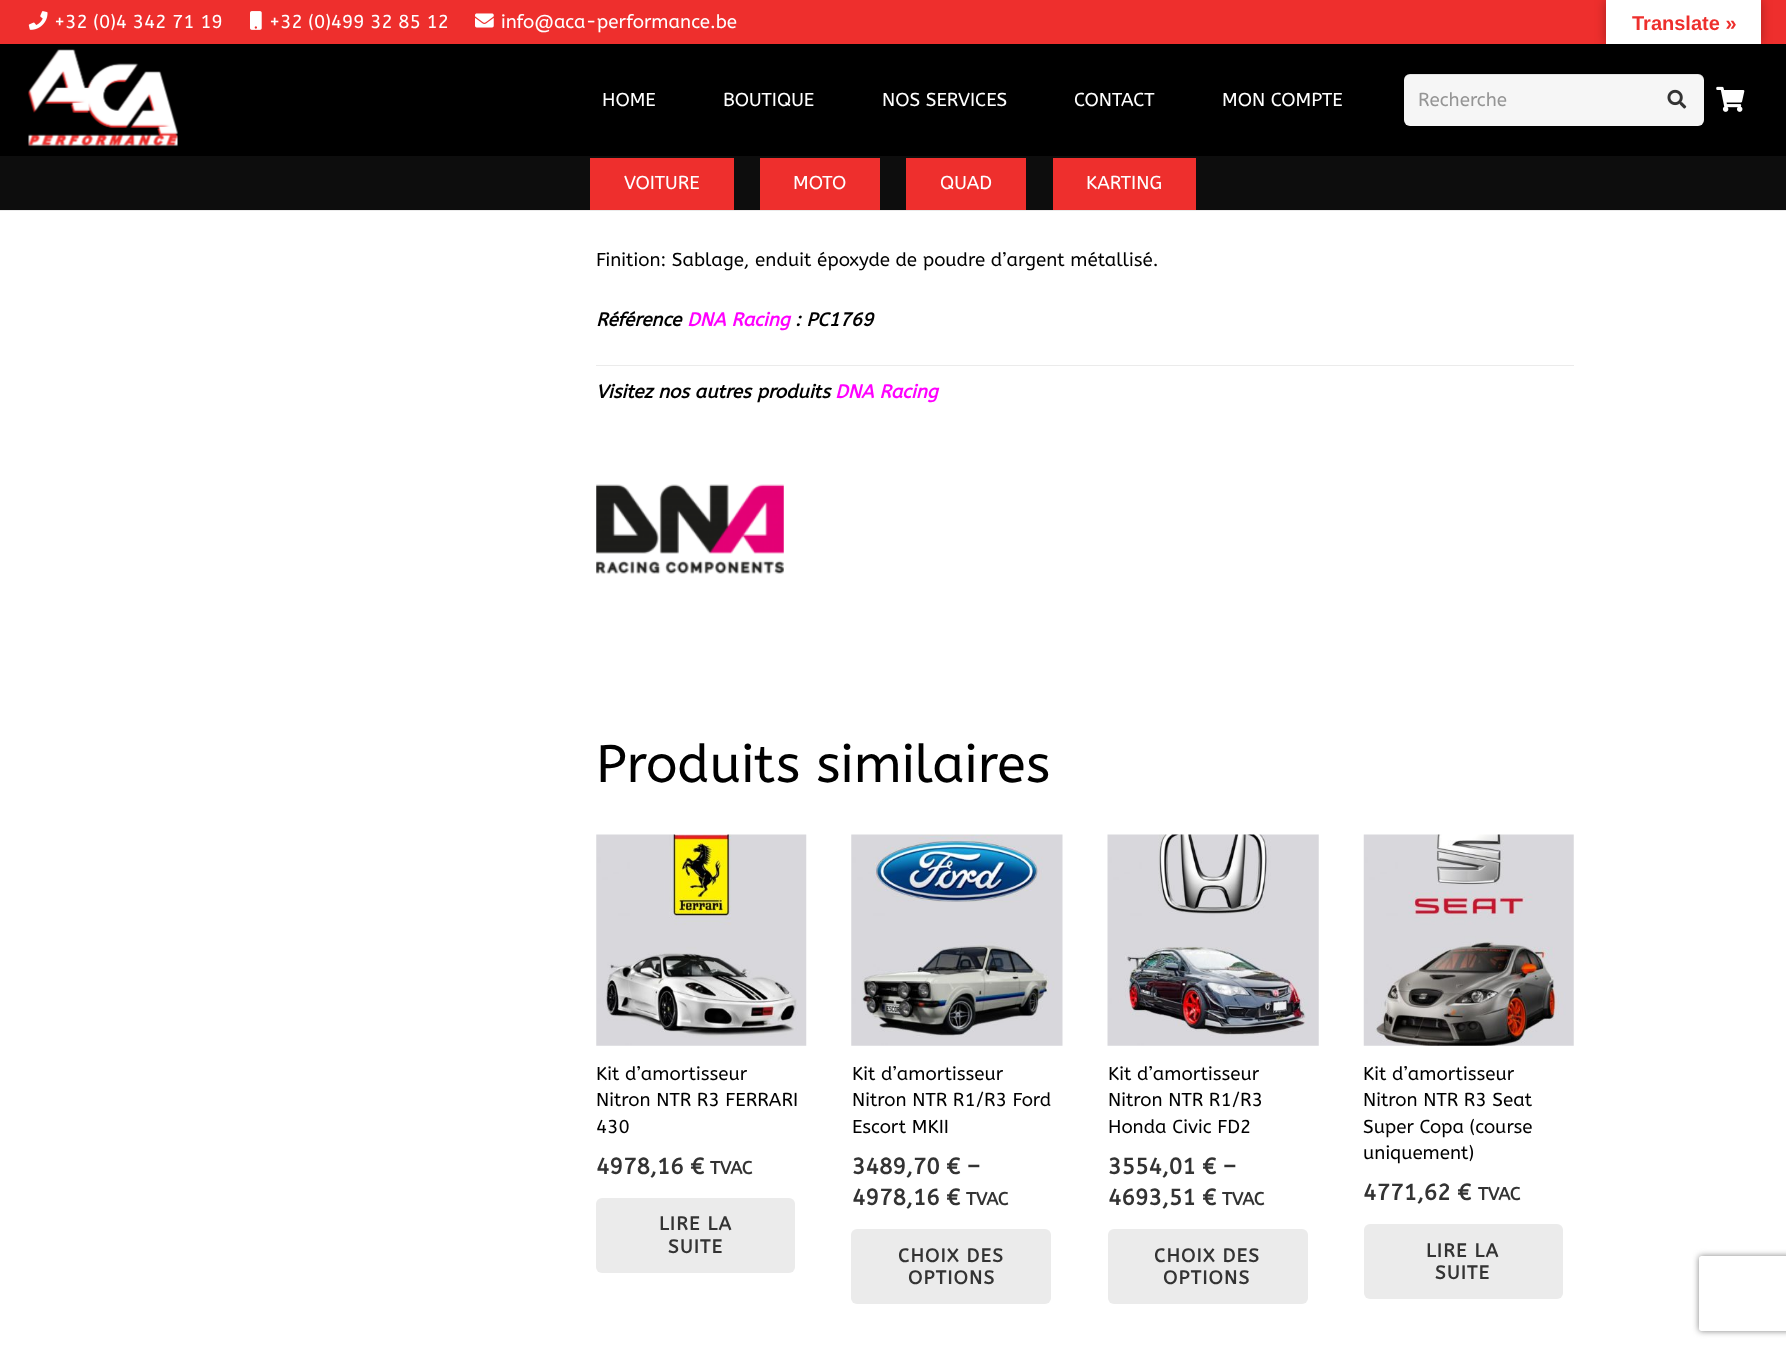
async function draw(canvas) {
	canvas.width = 1786;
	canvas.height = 1348;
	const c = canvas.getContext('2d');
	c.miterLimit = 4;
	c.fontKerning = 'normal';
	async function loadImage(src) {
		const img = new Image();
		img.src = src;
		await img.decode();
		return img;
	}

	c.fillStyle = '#fff';
	c.fillRect(0, 0, 1786, 1348);
	c.fillStyle = '#ee2f2d';
	c.fillRect(0, 0, 1786, 44);
	c.drawImage(await loadImage('img1.png'), 28, 11, 20, 19);
	c.font = '18.75px ABeeZee';
	c.fillStyle = '#fff';
	c.fillText('+32 (0)4 342 71 19', 54, 28);
	c.drawImage(await loadImage('img2.png'), 250, 11, 12, 19);
	c.fillText('+32 (0)499 32 85 12', 269, 28);
	c.drawImage(await loadImage('img3.png'), 475, 13, 19, 15);
	c.fillText('info@aca-performance.be', 501, 28);
	c.fillStyle = '#000';
	c.fillRect(0, 44, 1786, 112);
	c.drawImage(await loadImage('img4.png'), 28, 49, 150, 98);
	c.fillStyle = '#fff';
	for (const [text, x, y] of [
		['HOME', 602, 106],
		['BOUTIQUE', 723, 106],
		['NOS SERVICES', 882, 106],
		['CONTACT', 1074, 106],
		['MON COMPTE', 1222, 106],
	]) {
		c.fillText(text, x, y);
	}
	c.fillStyle = '#f6f6f6';
	c.beginPath();
	c.roundRect(1404, 74, 300, 52, 6);
	c.fill();
	c.fillStyle = '#00000014';
	c.beginPath();
	c.moveTo(1409, 75);
	c.lineTo(1698, 75);
	c.bezierCurveTo(1701, 75, 1704, 78, 1704, 81);
	c.bezierCurveTo(1704, 77, 1702, 74, 1698, 74);
	c.lineTo(1410, 74);
	c.bezierCurveTo(1406, 74, 1404, 77, 1404, 81);
	c.bezierCurveTo(1404, 78, 1406, 75, 1409, 75);
	c.closePath();
	c.fill();
	c.fillStyle = '#959595';
	c.fillText('Recherche', 1418, 106);
	c.drawImage(await loadImage('img5.png'), 1667, 89, 20, 20);
	c.drawImage(await loadImage('img6.png'), 1716, 86, 29, 26);
	for (const [x, y, w, h, color] of [
		[0, 210, 1786, 1, '#ebebeb'],
		[0, 156, 1786, 54, '#0d0d0d'],
		[590, 158, 144, 52, '#ee2f2d'],
	]) {
		c.fillStyle = color;
		c.fillRect(x, y, w, h);
	}
	c.fillStyle = '#fff';
	c.fillText('VOITURE', 624, 189);
	c.fillStyle = '#ee2f2d';
	c.fillRect(760, 158, 120, 52);
	c.fillStyle = '#fff';
	c.fillText('MOTO', 793, 189);
	c.fillStyle = '#ee2f2d';
	c.fillRect(906, 158, 120, 52);
	c.fillStyle = '#fff';
	c.fillText('QUAD', 940, 189);
	c.fillStyle = '#ee2f2d';
	c.fillRect(1053, 158, 143, 52);
	c.fillStyle = '#fff';
	c.fillText('KARTING', 1086, 189);
	c.fillStyle = '#000';
	c.fillText('Finition: Sablage, enduit époxyde de poudre d’argent métallisé.', 596, 266);
	c.font = 'italic bold 18.75px ABeeZee';
	c.fillText('Référence', 596, 326);
	c.fillStyle = '#f0f';
	c.fillText('DNA Racing', 687, 326);
	c.fillStyle = '#000';
	c.fillText(': PC1769', 795, 326);
	c.fillStyle = '#ebebeb';
	c.fillRect(596, 365, 978, 1);
	c.fillStyle = '#000';
	c.fillText('Visitez nos autres produits', 596, 398);
	c.fillStyle = '#f0f';
	c.fillText('DNA Racing', 835, 398);
	c.drawImage(await loadImage('img7.png'), 596, 484, 188, 90);
	c.font = '52.5px ABeeZee';
	c.fillStyle = '#000';
	c.fillText('Produits similaires', 596, 782);
	c.drawImage(await loadImage('img8.png'), 596, 834, 211, 212);
	c.font = '18.75px ABeeZee';
	for (const [text, x, y] of [
		['Kit d’amortisseur', 596, 1080],
		['Nitron NTR R3 FERRARI', 596, 1106],
		['430', 596, 1133],
	]) {
		c.fillText(text, x, y);
	}
	c.font = 'bold 22.5px ABeeZee';
	c.fillStyle = '#333';
	c.fillText('4978,16 €', 596, 1174);
	c.font = 'bold 18px ABeeZee';
	c.fillText('TVAC', 710, 1174);
	c.fillStyle = '#ebebeb';
	c.beginPath();
	c.roundRect(596, 1198, 199, 75, 6);
	c.fill();
	c.letterSpacing = '1.25px';
	c.font = 'bold 18.75px ABeeZee';
	c.fillStyle = '#333';
	c.fillText('LIRE LA', 659, 1230);
	c.fillText('SUITE', 668, 1253);
	c.drawImage(await loadImage('img9.png'), 851, 834, 212, 212);
	c.letterSpacing = '0px';
	c.font = '18.75px ABeeZee';
	c.fillStyle = '#000';
	for (const [text, x, y] of [
		['Kit d’amortisseur', 852, 1080],
		['Nitron NTR R1/R3 Ford', 852, 1106],
		['Escort MKII', 852, 1133],
	]) {
		c.fillText(text, x, y);
	}
	c.font = 'bold 22.5px ABeeZee';
	c.fillStyle = '#333';
	c.fillText('3489,70 € –', 852, 1174);
	c.fillText('4978,16 €', 852, 1205);
	c.font = 'bold 18px ABeeZee';
	c.fillText('TVAC', 966, 1205);
	c.fillStyle = '#ebebeb';
	c.beginPath();
	c.roundRect(851, 1229, 200, 75, 6);
	c.fill();
	c.letterSpacing = '1.25px';
	c.font = 'bold 18.75px ABeeZee';
	c.fillStyle = '#333';
	c.fillText('CHOIX DES', 898, 1262);
	c.fillText('OPTIONS', 908, 1284);
	c.drawImage(await loadImage('img10.png'), 1107, 834, 212, 212);
	c.letterSpacing = '0px';
	c.font = '18.75px ABeeZee';
	c.fillStyle = '#000';
	for (const [text, x, y] of [
		['Kit d’amortisseur', 1108, 1080],
		['Nitron NTR R1/R3', 1108, 1106],
		['Honda Civic FD2', 1108, 1133],
	]) {
		c.fillText(text, x, y);
	}
	c.font = 'bold 22.5px ABeeZee';
	c.fillStyle = '#333';
	c.fillText('3554,01 € –', 1108, 1174);
	c.fillText('4693,51 €', 1108, 1205);
	c.font = 'bold 18px ABeeZee';
	c.fillText('TVAC', 1222, 1205);
	c.fillStyle = '#ebebeb';
	c.beginPath();
	c.roundRect(1108, 1229, 200, 75, 6);
	c.fill();
	c.letterSpacing = '1.25px';
	c.font = 'bold 18.75px ABeeZee';
	c.fillStyle = '#333';
	c.fillText('CHOIX DES', 1154, 1262);
	c.fillText('OPTIONS', 1163, 1284);
	c.drawImage(await loadImage('img11.png'), 1363, 834, 211, 212);
	c.letterSpacing = '0px';
	c.font = '18.75px ABeeZee';
	c.fillStyle = '#000';
	for (const [text, x, y] of [
		['Kit d’amortisseur', 1363, 1080],
		['Nitron NTR R3 Seat', 1363, 1106],
		['Super Copa (course', 1363, 1133],
		['uniquement)', 1363, 1159],
	]) {
		c.fillText(text, x, y);
	}
	c.font = 'bold 22.5px ABeeZee';
	c.fillStyle = '#333';
	c.fillText('4771,62 €', 1363, 1200);
	c.font = 'bold 18px ABeeZee';
	c.fillText('TVAC', 1478, 1200);
	c.fillStyle = '#ebebeb';
	c.beginPath();
	c.roundRect(1364, 1224, 199, 75, 6);
	c.fill();
	c.letterSpacing = '1.25px';
	c.font = 'bold 18.75px ABeeZee';
	c.fillStyle = '#333';
	c.fillText('LIRE LA', 1426, 1257);
	c.fillText('SUITE', 1435, 1279);
	c.fillStyle = '#0000004d';
	c.filter = 'blur(5.5px)';
	c.beginPath();
	c.rect(1606, 0, 155, 44);
	c.fill();
	c.filter = 'none';
	c.fillStyle = '#fff';
	c.fillRect(1606, 0, 155, 44);
	c.letterSpacing = '0px';
	c.font = 'bold 20px Liberation Sans';
	c.fillStyle = '#ee2f2d';
	c.fillText('Translate »', 1632, 30);
	c.save();
	c.beginPath();
	c.moveTo(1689, 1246);
	c.lineTo(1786, 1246);
	c.lineTo(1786, 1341);
	c.lineTo(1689, 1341);
	c.closePath();
	c.moveTo(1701.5, 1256);
	c.lineTo(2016.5, 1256);
	c.bezierCurveTo(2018, 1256, 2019, 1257, 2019, 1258.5);
	c.lineTo(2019, 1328.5);
	c.bezierCurveTo(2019, 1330, 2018, 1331, 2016.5, 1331);
	c.lineTo(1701.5, 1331);
	c.bezierCurveTo(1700, 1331, 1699, 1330, 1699, 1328.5);
	c.lineTo(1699, 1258.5);
	c.bezierCurveTo(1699, 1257, 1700, 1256, 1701.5, 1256);
	c.closePath();
	c.clip('evenodd');
	c.fillStyle = '#808080';
	c.filter = 'blur(3px)';
	c.beginPath();
	c.roundRect(1699, 1256, 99, 75, 2.5);
	c.fill();
	c.filter = 'none';
	c.restore();
}

draw(document.querySelector('canvas'));
